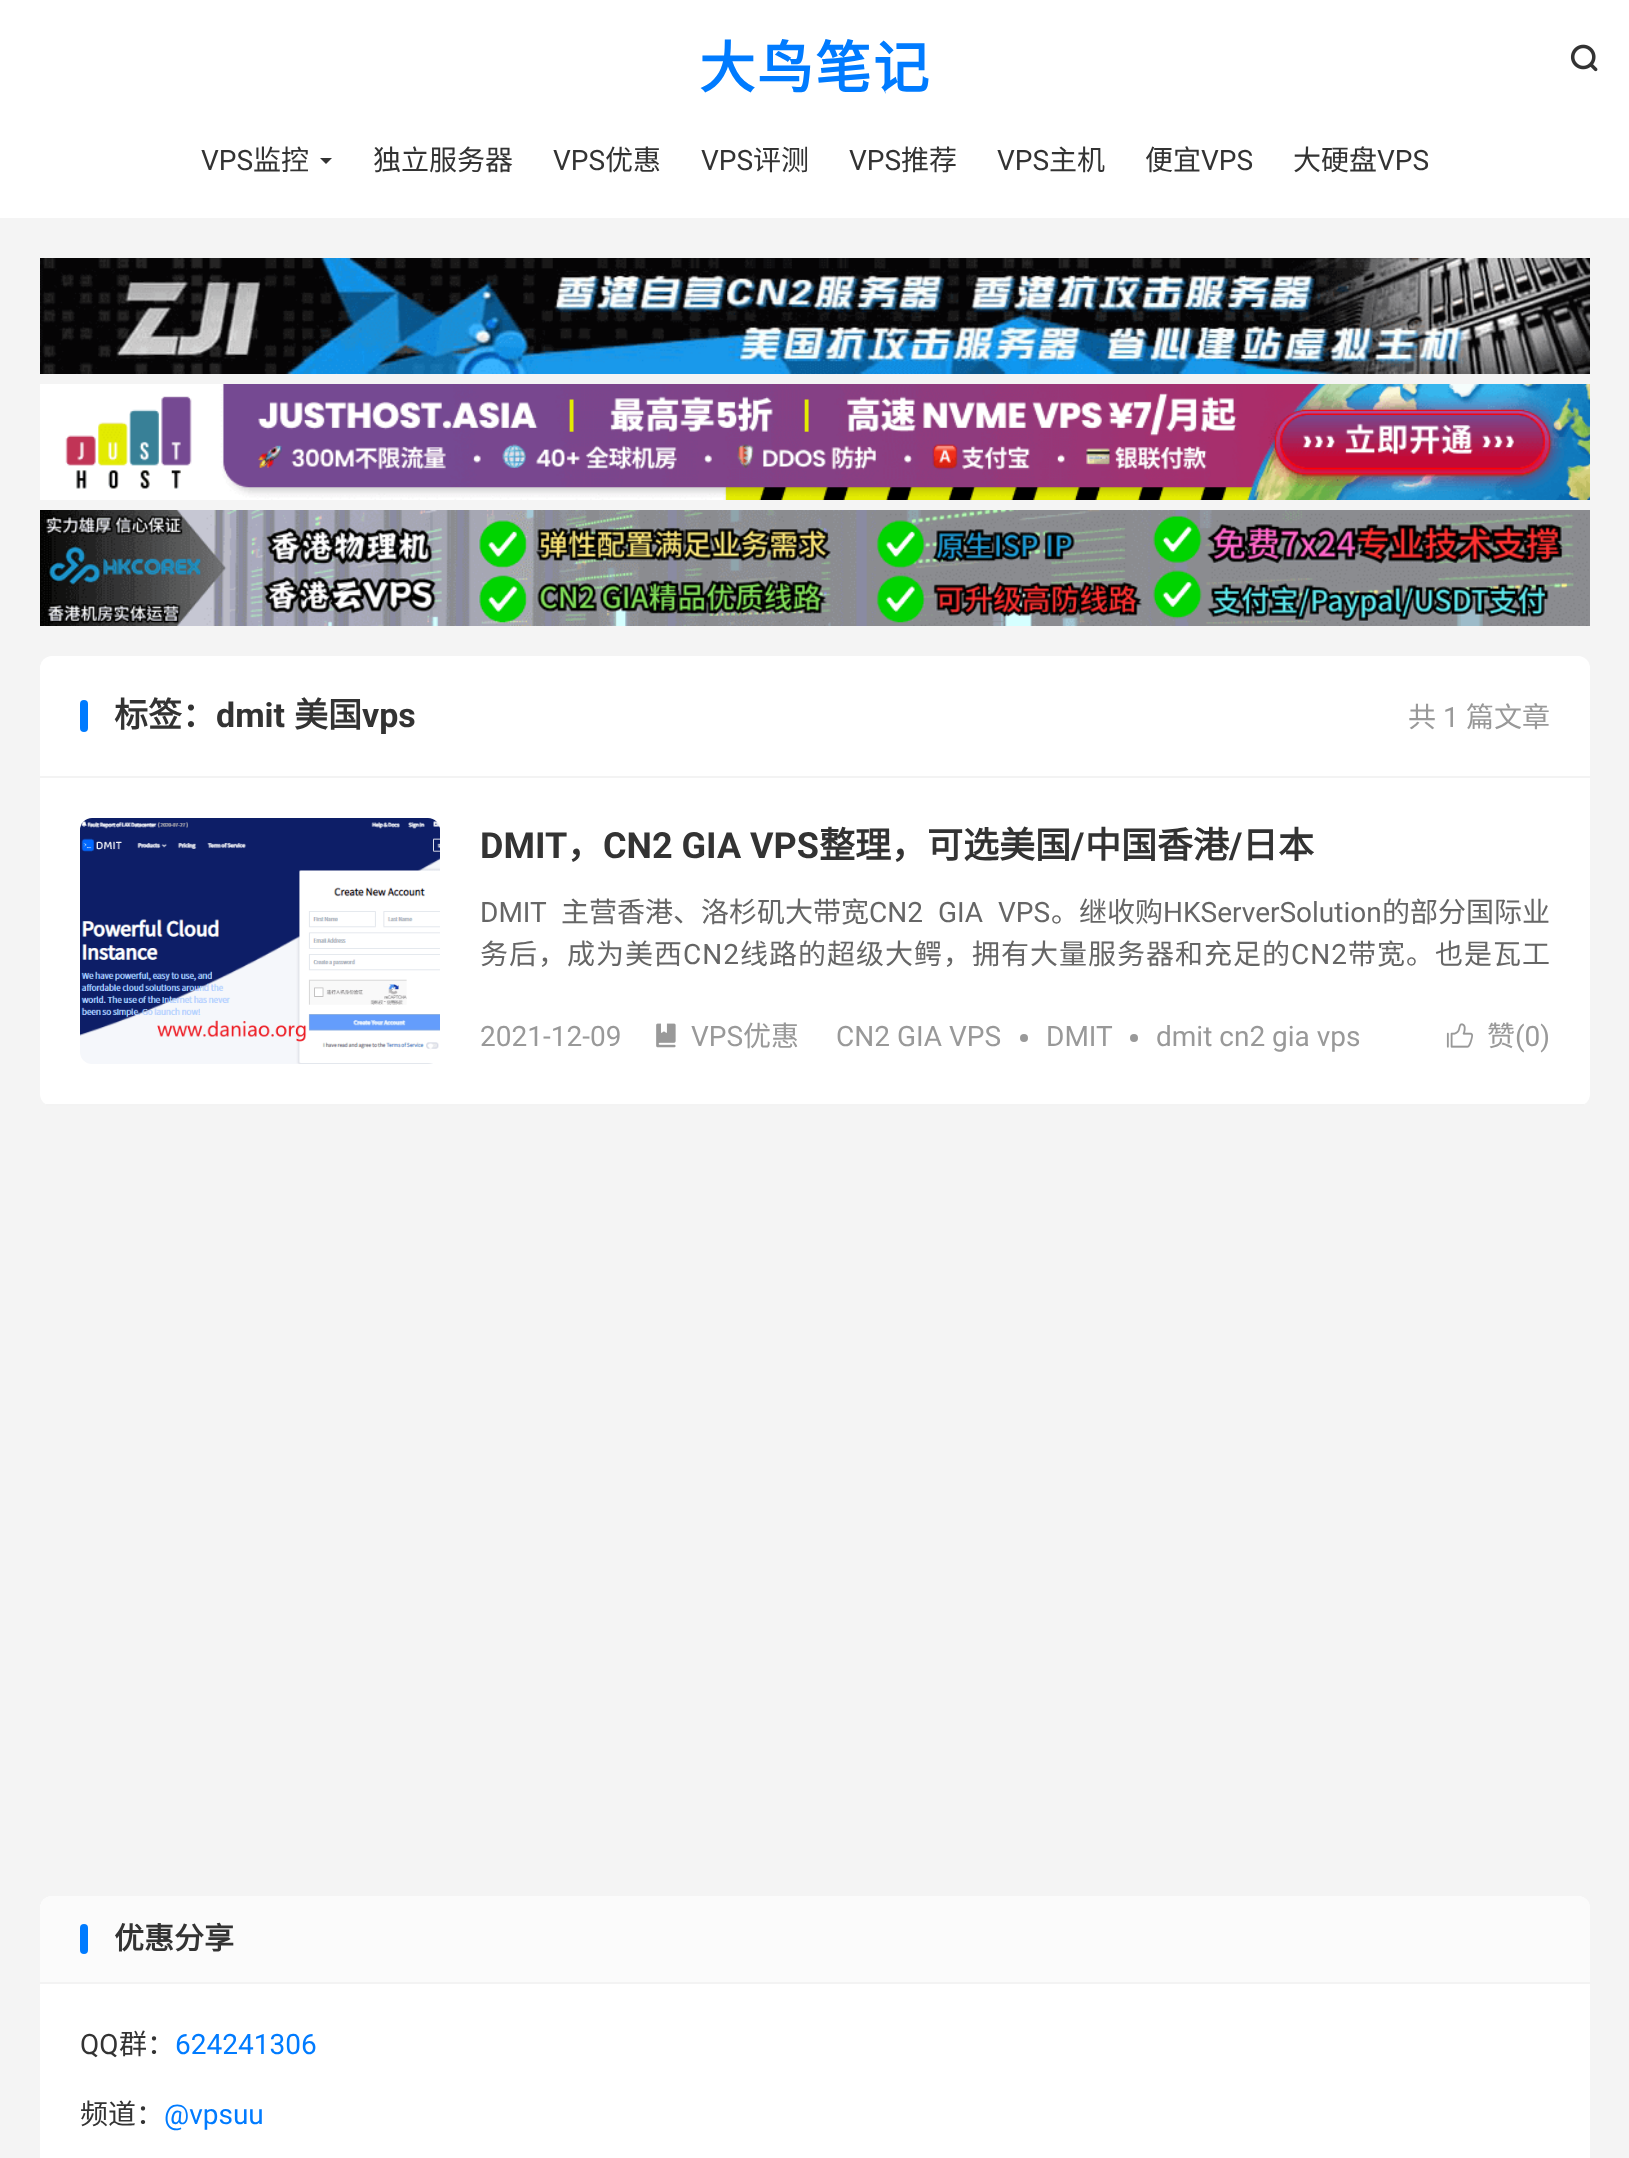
async function draw(canvas) {
	canvas.width = 1629;
	canvas.height = 2158;
	const c = canvas.getContext('2d');
	c.miterLimit = 4;
	c.fontKerning = 'normal';
	async function loadImage(src) {
		const img = new Image();
		img.src = src;
		await img.decode();
		return img;
	}

	c.fillStyle = '#f4f4f4';
	c.fillRect(0, 0, 1629, 2158);
	c.fillStyle = '#fff';
	c.fillRect(0, 0, 1629, 218);
	c.letterSpacing = '2px';
	c.font = 'bold 56px Noto Sans CJK SC';
	c.fillStyle = '#007bff';
	c.fillText('大鸟笔记', 699, 88);
	c.drawImage(await loadImage('img1.png'), 1570, 44, 28, 28);
	c.letterSpacing = '0px';
	c.font = '28px Roboto';
	c.fillStyle = '#333';
	c.fillText('VPS', 201, 170);
	c.font = '28px Noto Sans CJK SC';
	c.fillText('监控', 253, 170);
	c.beginPath();
	c.moveTo(320, 158);
	c.lineTo(332, 158);
	c.lineTo(326, 164);
	c.closePath();
	c.fill();
	c.fillText('独立服务器', 373, 170);
	c.font = '28px Roboto';
	c.fillText('VPS', 553, 170);
	c.font = '28px Noto Sans CJK SC';
	c.fillText('优惠', 605, 170);
	c.font = '28px Roboto';
	c.fillText('VPS', 701, 170);
	c.font = '28px Noto Sans CJK SC';
	c.fillText('评测', 753, 170);
	c.font = '28px Roboto';
	c.fillText('VPS', 849, 170);
	c.font = '28px Noto Sans CJK SC';
	c.fillText('推荐', 901, 170);
	c.font = '28px Roboto';
	c.fillText('VPS', 997, 170);
	c.font = '28px Noto Sans CJK SC';
	c.fillText('主机', 1049, 170);
	c.fillText('便宜', 1145, 170);
	c.font = '28px Roboto';
	c.fillText('VPS', 1201, 170);
	c.font = '28px Noto Sans CJK SC';
	c.fillText('大硬盘', 1293, 170);
	c.font = '28px Roboto';
	c.fillText('VPS', 1377, 170);
	c.drawImage(await loadImage('img2.png'), 40, 258, 1550, 116);
	c.drawImage(await loadImage('img3.png'), 40, 384, 1550, 116);
	c.drawImage(await loadImage('img4.png'), 40, 510, 1550, 116);
	c.fillStyle = '#fff';
	c.beginPath();
	c.roundRect(40, 656, 1550, 122, [12, 12, 0, 0]);
	c.fill();
	c.fillStyle = '#f3f3f3';
	c.fillRect(40, 776, 1550, 2);
	c.fillStyle = '#007bff';
	c.beginPath();
	c.roundRect(80, 700, 8, 32, 4);
	c.fill();
	c.font = 'bold 34px Noto Sans CJK SC';
	c.fillStyle = '#333';
	c.fillText('标签：', 114, 727);
	c.font = 'bold 34px Roboto';
	c.fillText('dmit', 216, 727);
	c.font = 'bold 34px Noto Sans CJK SC';
	c.fillText('美国', 294, 727);
	c.font = 'bold 34px Roboto';
	c.fillText('vps', 362, 727);
	c.font = '28px Noto Sans CJK SC';
	c.fillStyle = '#999';
	c.fillText('共', 1408, 727);
	c.font = '28px Roboto';
	c.fillText('1', 1443, 727);
	c.font = '28px Noto Sans CJK SC';
	c.fillText('篇文章', 1466, 727);
	c.fillStyle = '#fff';
	c.beginPath();
	c.roundRect(40, 778, 1550, 328, [0, 0, 12, 12]);
	c.fill();
	c.fillStyle = '#f3f3f3';
	c.fillRect(46, 1104, 1538, 2);
	c.drawImage(await loadImage('img5.png'), 80, 818, 360, 246);
	c.font = 'bold 36px Roboto';
	c.fillStyle = '#333';
	c.fillText('DMIT', 480, 858);
	c.font = 'bold 36px Noto Sans CJK SC';
	c.fillText('，', 567, 858);
	c.font = 'bold 36px Roboto';
	c.fillText('CN2 GIA VPS', 603, 858);
	c.font = 'bold 36px Noto Sans CJK SC';
	c.fillText('整理，可选美国', 819, 858);
	c.font = 'bold 36px Roboto';
	c.fillText('/', 1071, 858);
	c.font = 'bold 36px Noto Sans CJK SC';
	c.fillText('中国香港', 1085, 858);
	c.font = 'bold 36px Roboto';
	c.fillText('/', 1229, 858);
	c.font = 'bold 36px Noto Sans CJK SC';
	c.fillText('日本', 1242, 858);
	c.font = '28px Roboto';
	c.fillStyle = '#666';
	c.fillText('DMIT', 480, 922);
	c.font = '28px Noto Sans CJK SC';
	c.fillText('主营香港、洛杉矶大带宽', 561, 922);
	c.wordSpacing = '8px';
	c.font = '28px Roboto';
	c.fillText('CN2 GIA VPS', 869, 922);
	c.wordSpacing = '0px';
	c.font = '28px Noto Sans CJK SC';
	c.fillText('。继收购', 1051, 922);
	c.font = '28px Roboto';
	c.fillText('HKServerSolution', 1163, 922);
	c.font = '28px Noto Sans CJK SC';
	c.fillText('的部分国际业', 1382, 922);
	c.letterSpacing = '1px';
	c.fillText('务后，成为美西', 480, 964);
	c.font = '28px Roboto';
	c.fillText('CN2', 683, 964);
	c.font = '28px Noto Sans CJK SC';
	c.fillText('线路的超级大鳄，拥有大量服务器和充足的', 740, 964);
	c.font = '28px Roboto';
	c.fillText('CN2', 1291, 964);
	c.font = '28px Noto Sans CJK SC';
	c.fillText('带宽。也是瓦工', 1348, 964);
	c.letterSpacing = '0px';
	c.font = '28px Roboto';
	c.fillStyle = '#999';
	c.fillText('2021-12-09', 480, 1046);
	c.drawImage(await loadImage('img6.png'), 656, 1023, 20, 25);
	c.fillText('VPS', 691, 1046);
	c.font = '28px Noto Sans CJK SC';
	c.fillText('优惠', 743, 1046);
	c.font = '28px Roboto';
	c.fillText('CN2 GIA VPS', 836, 1046);
	c.beginPath();
	c.arc(1024, 1038, 4, 0, 2 * Math.PI);
	c.fill();
	c.fillText('DMIT', 1046, 1046);
	c.beginPath();
	c.arc(1134, 1038, 4, 0, 2 * Math.PI);
	c.fill();
	c.fillText('dmit cn2 gia vps', 1156, 1046);
	c.drawImage(await loadImage('img7.png'), 1446, 1023, 27, 25);
	c.font = '28px Noto Sans CJK SC';
	c.fillText('赞', 1487, 1046);
	c.font = '28px Roboto';
	c.fillText('(0)', 1515, 1046);
	c.fillStyle = '#fff';
	c.beginPath();
	c.roundRect(40, 1896, 1550, 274, 12);
	c.fill();
	c.fillStyle = '#fbfbfb';
	c.beginPath();
	c.roundRect(40, 1896, 1550, 88, [12, 12, 0, 0]);
	c.fill();
	c.fillStyle = '#f3f3f3';
	c.fillRect(40, 1982, 1550, 2);
	c.fillStyle = '#007bff';
	c.beginPath();
	c.roundRect(80, 1924, 8, 30, 4);
	c.fill();
	c.font = 'bold 30px Noto Sans CJK SC';
	c.fillStyle = '#333';
	c.fillText('优惠分享', 114, 1949);
	c.font = '28px Roboto';
	c.fillText('QQ', 80, 2054);
	c.font = '28px Noto Sans CJK SC';
	c.fillText('群：', 119, 2054);
	c.font = '28px Roboto';
	c.fillStyle = '#007bff';
	c.fillText('624241306', 175, 2054);
	c.font = '28px Noto Sans CJK SC';
	c.fillStyle = '#333';
	c.fillText('频道：', 80, 2124);
	c.font = '28px Roboto';
	c.fillStyle = '#007bff';
	c.fillText('@vpsuu', 164, 2124);
}

draw(document.querySelector('canvas'));
